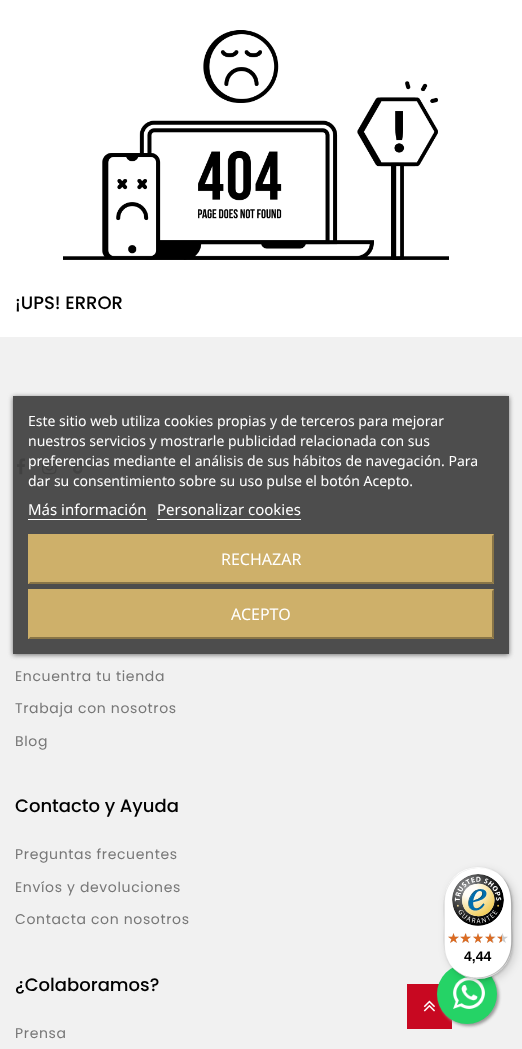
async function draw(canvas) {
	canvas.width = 522;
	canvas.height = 1049;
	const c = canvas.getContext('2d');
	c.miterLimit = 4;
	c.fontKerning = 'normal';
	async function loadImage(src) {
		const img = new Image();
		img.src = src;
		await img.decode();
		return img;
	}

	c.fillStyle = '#fff';
	c.fillRect(0, 0, 522, 1049);
	c.drawImage(await loadImage('img1.png'), 63, 30, 386, 230);
	c.font = '500 18px Poppins';
	c.fillStyle = '#000';
	c.fillText('¡UPS! ERROR', 15, 309);
	c.fillStyle = '#f1f1f1';
	c.fillRect(0, 337, 522, 712);
	c.drawImage(await loadImage('img2.png'), 16, 458, 10, 17);
	c.drawImage(await loadImage('img3.png'), 42, 459, 15, 16);
	c.drawImage(await loadImage('img4.png'), 73, 459, 13, 15);
	c.save();
	c.beginPath();
	c.moveTo(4, 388);
	c.lineTo(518, 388);
	c.lineTo(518, 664);
	c.lineTo(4, 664);
	c.closePath();
	c.moveTo(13, 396);
	c.lineTo(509, 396);
	c.lineTo(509, 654);
	c.lineTo(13, 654);
	c.closePath();
	c.clip('evenodd');
	c.fillStyle = '#707070';
	c.filter = 'blur(2.5px)';
	c.beginPath();
	c.rect(13, 397, 496, 258);
	c.fill();
	c.filter = 'none';
	c.restore();
	c.fillStyle = '#3b3b3be6';
	c.fillRect(13, 396, 496, 258);
	c.font = '14px Noto Sans';
	c.fillStyle = '#fff';
	for (const [text, x, y] of [
		['Este sitio web utiliza cookies propias y de terceros para mejorar', 28, 426],
		['nuestros servicios y mostrarle publicidad relacionada con sus', 28, 446],
		['preferencias mediante el análisis de sus hábitos de navegación. Para', 28, 466],
		['dar su consentimiento sobre su uso pulse el botón Acepto.', 28, 486],
	]) {
		c.fillText(text, x, y);
	}
	c.font = '15px Noto Sans';
	c.fillText('Más información', 28, 515);
	c.fillRect(28, 519, 119, 1);
	c.fillText('Personalizar cookies', 157, 515);
	c.fillRect(157, 519, 144, 1);
	c.fillStyle = '#ceb06a';
	c.fillRect(28, 534, 466, 50);
	c.fillStyle = '#897547';
	c.beginPath();
	c.moveTo(494, 534);
	c.lineTo(494, 584);
	c.lineTo(492, 582);
	c.lineTo(492, 536);
	c.closePath();
	c.fill();
	c.beginPath();
	c.moveTo(494, 584);
	c.lineTo(28, 584);
	c.lineTo(30, 582);
	c.lineTo(492, 582);
	c.closePath();
	c.fill();
	c.fillStyle = '#ceb06a';
	c.beginPath();
	c.moveTo(28, 584);
	c.lineTo(28, 534);
	c.lineTo(30, 536);
	c.lineTo(30, 582);
	c.closePath();
	c.fill();
	c.font = '16px Noto Sans';
	c.fillStyle = '#fff';
	c.fillText('RECHAZAR', 221, 565);
	c.fillStyle = '#ceb06a';
	c.fillRect(28, 589, 466, 50);
	c.fillStyle = '#897547';
	c.beginPath();
	c.moveTo(494, 589);
	c.lineTo(494, 639);
	c.lineTo(492, 637);
	c.lineTo(492, 591);
	c.closePath();
	c.fill();
	c.beginPath();
	c.moveTo(494, 639);
	c.lineTo(28, 639);
	c.lineTo(30, 637);
	c.lineTo(492, 637);
	c.closePath();
	c.fill();
	c.fillStyle = '#ceb06a';
	c.beginPath();
	c.moveTo(28, 639);
	c.lineTo(28, 589);
	c.lineTo(30, 591);
	c.lineTo(30, 637);
	c.closePath();
	c.fill();
	c.fillStyle = '#fff';
	c.fillText('ACEPTO', 231, 620);
	c.letterSpacing = '0.65px';
	c.font = '14px Poppins';
	c.fillStyle = '#777';
	for (const [text, x, y] of [
		['Encuentra tu tienda', 15, 681],
		['Trabaja con nosotros', 15, 713],
		['Blog', 15, 746],
	]) {
		c.fillText(text, x, y);
	}
	c.letterSpacing = '0px';
	c.font = '500 18px Poppins';
	c.fillStyle = '#000';
	c.fillText('Contacto y Ayuda', 15, 812);
	c.letterSpacing = '0.65px';
	c.font = '14px Poppins';
	c.fillStyle = '#777';
	for (const [text, x, y] of [
		['Preguntas frecuentes', 15, 859],
		['Envíos y devoluciones', 15, 892],
		['Contacta con nosotros', 15, 924],
	]) {
		c.fillText(text, x, y);
	}
	c.letterSpacing = '0px';
	c.font = '500 18px Poppins';
	c.fillStyle = '#000';
	c.fillText('¿Colaboramos?', 15, 991);
	c.letterSpacing = '0.65px';
	c.font = '14px Poppins';
	c.fillStyle = '#777';
	c.fillText('Prensa', 15, 1038);
	c.fillStyle = '#c80821';
	c.fillRect(407, 984, 45, 45);
	c.drawImage(await loadImage('img5.png'), 423, 1000, 12, 12);
	c.fillStyle = '#999';
	c.filter = 'blur(1.5px)';
	c.beginPath();
	c.roundRect(439, 966, 60, 60, 30);
	c.fill();
	c.filter = 'none';
	c.fillStyle = '#25d366';
	c.beginPath();
	c.arc(467, 994, 30, 0, 2 * Math.PI);
	c.fill();
	c.drawImage(await loadImage('img16.png'), 453, 977, 32, 32);
	c.fillStyle = '#00000026';
	c.filter = 'blur(4px)';
	c.beginPath();
	c.roundRect(447, 870, 68, 112, 34);
	c.fill();
	c.filter = 'none';
	c.filter = 'blur(1px)';
	c.beginPath();
	c.roundRect(445, 868, 68, 112, 34);
	c.fill();
	c.filter = 'none';
	c.fillStyle = '#fff';
	c.beginPath();
	c.roundRect(444, 867, 68, 112, 34);
	c.fill();
	c.fillStyle = '#0000001a';
	c.beginPath();
	c.moveTo(479, 868);
	c.bezierCurveTo(487, 868, 495, 871, 501, 876);
	c.bezierCurveTo(484, 861, 456, 867, 447, 888);
	c.bezierCurveTo(442, 898, 444, 912, 444, 923);
	c.bezierCurveTo(444, 938, 441, 955, 453, 968);
	c.bezierCurveTo(448, 962, 445, 954, 445, 946);
	c.lineTo(445, 902);
	c.bezierCurveTo(445, 883, 460, 868, 479, 868);
	c.closePath();
	c.fill();
	c.fillStyle = '#00000033';
	c.beginPath();
	c.moveTo(455, 970);
	c.bezierCurveTo(472, 985, 500, 979, 509, 958);
	c.bezierCurveTo(514, 948, 512, 934, 512, 923);
	c.bezierCurveTo(512, 908, 515, 891, 503, 878);
	c.bezierCurveTo(513, 891, 511, 907, 511, 922);
	c.bezierCurveTo(511, 933, 513, 947, 508, 957);
	c.bezierCurveTo(500, 978, 472, 984, 455, 970);
	c.closePath();
	c.fill();
	c.fillStyle = '#32323233';
	c.beginPath();
	c.moveTo(451, 966);
	c.bezierCurveTo(458, 974, 467, 979, 478, 979);
	c.bezierCurveTo(497, 979, 512, 964, 512, 945);
	c.lineTo(512, 901);
	c.bezierCurveTo(512, 890, 507, 881, 499, 874);
	c.bezierCurveTo(506, 881, 511, 890, 511, 900);
	c.lineTo(511, 944);
	c.bezierCurveTo(511, 963, 496, 978, 477, 978);
	c.bezierCurveTo(467, 978, 458, 973, 451, 966);
	c.closePath();
	c.fill();
	c.fillStyle = '#ffffff4d';
	c.beginPath();
	c.moveTo(444, 944);
	c.bezierCurveTo(444, 990, 512, 990, 512, 944);
	c.bezierCurveTo(512, 963, 496, 978, 478, 978);
	c.bezierCurveTo(459, 978, 444, 963, 444, 944);
	c.closePath();
	c.fill();
	c.drawImage(await loadImage('img6.png'), 452, 874, 52, 52);
	c.drawImage(await loadImage('img7.png'), 448, 933, 11, 10);
	c.drawImage(await loadImage('img8.png'), 461, 933, 10, 10);
	c.drawImage(await loadImage('img9.png'), 473, 933, 10, 10);
	c.drawImage(await loadImage('img10.png'), 485, 933, 11, 10);
	c.drawImage(await loadImage('img10.png'), 497, 933, 11, 10);
	c.drawImage(await loadImage('img11.png'), 448, 933, 11, 10);
	c.drawImage(await loadImage('img12.png'), 460, 933, 11, 10);
	c.drawImage(await loadImage('img13.png'), 473, 933, 10, 10);
	c.drawImage(await loadImage('img14.png'), 485, 933, 10, 10);
	c.drawImage(await loadImage('img15.png'), 497, 934, 5, 9);
	c.letterSpacing = '0px';
	c.font = 'bold 14px Liberation Sans';
	c.fillStyle = '#000';
	c.fillText('4,44', 464, 961);
}

draw(document.querySelector('canvas'));
